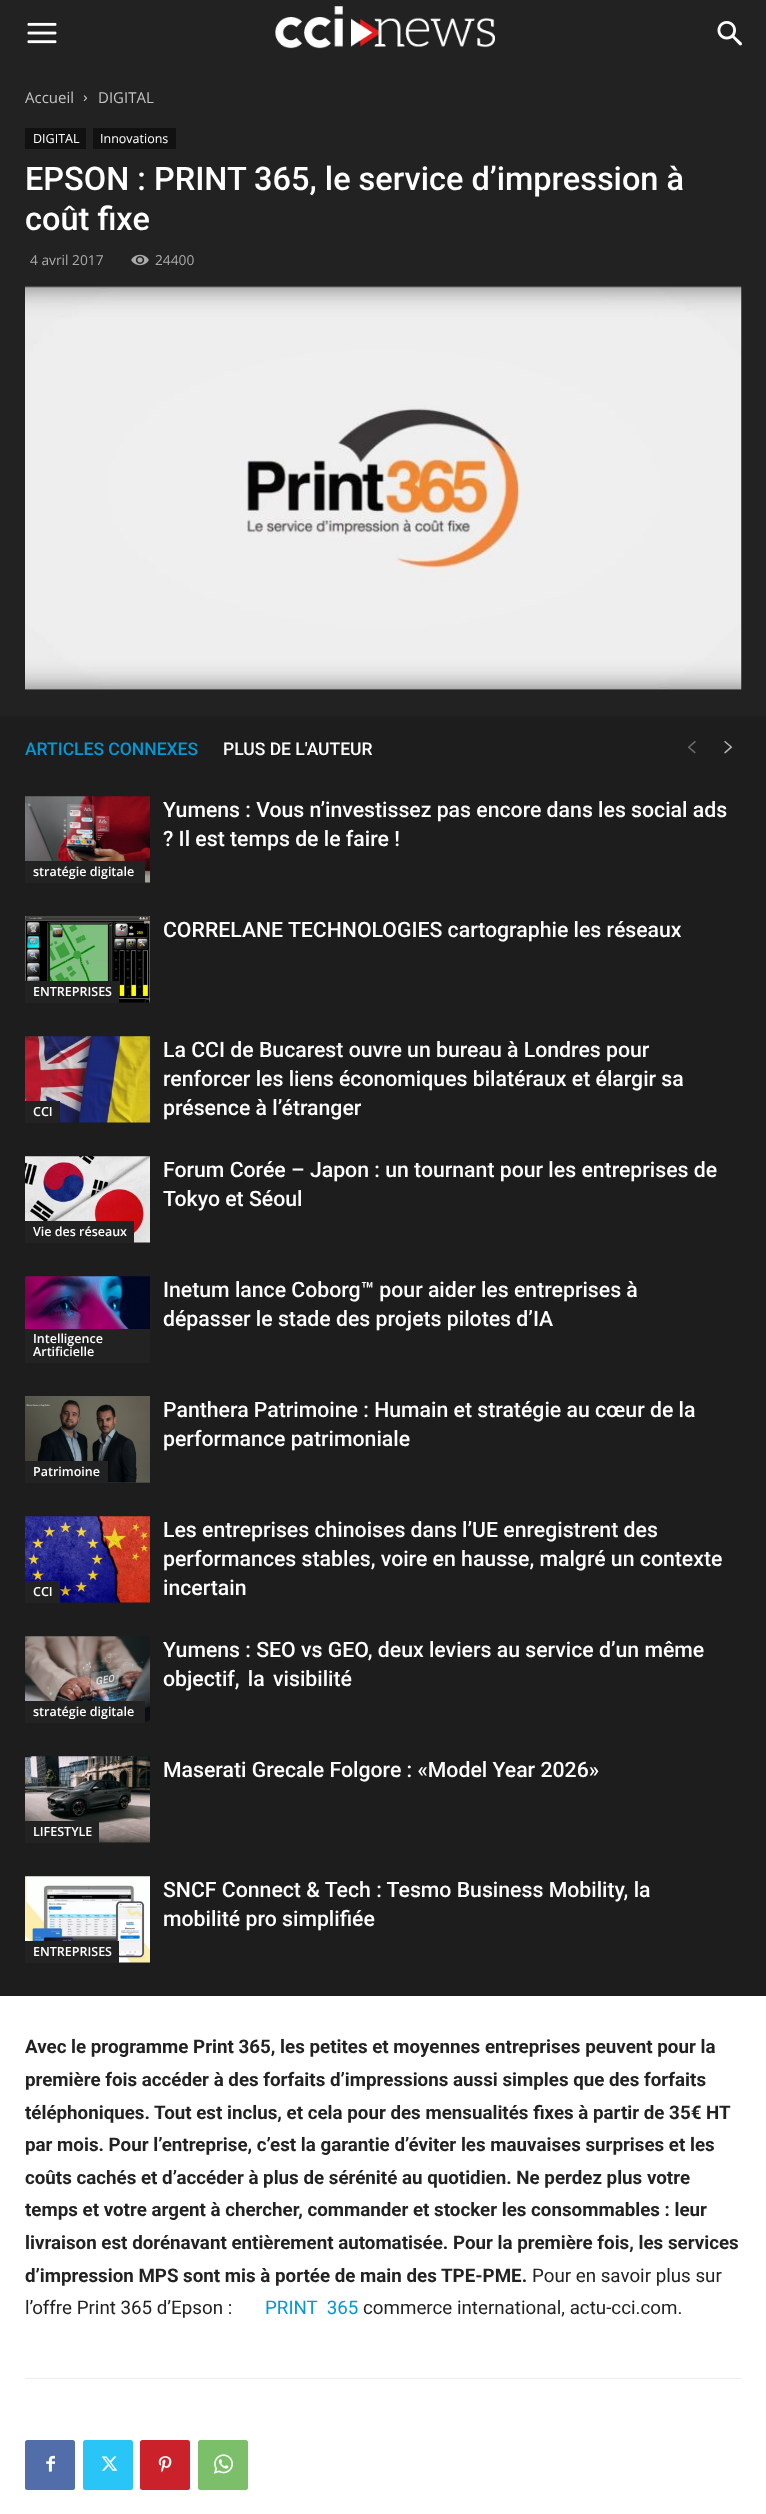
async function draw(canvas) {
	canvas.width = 766;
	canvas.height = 2514;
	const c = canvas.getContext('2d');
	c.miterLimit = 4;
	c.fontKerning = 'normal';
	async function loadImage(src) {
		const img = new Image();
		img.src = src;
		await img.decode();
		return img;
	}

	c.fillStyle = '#fff';
	c.fillRect(0, 0, 766, 2514);
	c.fillStyle = '#222';
	c.fillRect(0, 0, 766, 716);
	c.drawImage(await loadImage('img1.png'), 27, 22, 30, 22);
	c.drawImage(await loadImage('img2.png'), 275, 6, 220, 43);
	c.drawImage(await loadImage('img3.png'), 717, 21, 25, 25);
	c.font = '15px Open Sans';
	c.fillStyle = '#c3c3c3';
	c.fillText('Accueil', 25, 103);
	c.drawImage(await loadImage('img4.png'), 83, 95, 5, 7);
	c.fillText('DIGITAL', 98, 103);
	c.fillStyle = '#111';
	c.fillRect(25, 128, 61, 21);
	c.font = '12.5px Open Sans';
	c.fillStyle = '#fff';
	c.fillText('DIGITAL', 33, 143);
	c.fillStyle = '#111';
	c.fillRect(93, 128, 83, 21);
	c.fillStyle = '#fff';
	c.fillText('Innovations', 100, 143);
	c.font = '500 32.5px Roboto';
	c.fillText('EPSON : PRINT 365, le service d’impression à', 25, 190);
	c.fillText('coût fixe', 25, 230);
	c.font = '13.75px Open Sans';
	c.fillStyle = '#aaa';
	c.fillText('4 avril 2017', 30, 265);
	c.drawImage(await loadImage('img5.png'), 131, 254, 18, 12);
	c.fillText('24400', 155, 265);
	c.drawImage(await loadImage('img6.png'), 25, 286, 717, 404);
	c.fillStyle = '#1d1d1d';
	c.fillRect(0, 716, 766, 1280);
	c.font = '500 17.5px Roboto';
	c.fillStyle = '#0099d7';
	c.fillText('ARTICLES CONNEXES', 25, 755);
	c.fillStyle = '#fff';
	c.fillText('PLUS DE L\'AUTEUR', 223, 755);
	c.drawImage(await loadImage('img7.png'), 687, 741, 9, 13);
	c.drawImage(await loadImage('img8.png'), 724, 741, 9, 13);
	c.font = '500 21.25px Roboto';
	c.fillText('Yumens : Vous n’investissez pas encore dans les social ads', 163, 817);
	c.fillText('? Il est temps de le faire !', 163, 846);
	c.drawImage(await loadImage('img9.png'), 25, 796, 125, 87);
	c.fillStyle = '#222';
	c.fillRect(25, 861, 120, 22);
	c.font = '600 12.5px Open Sans';
	c.fillStyle = '#fff';
	c.fillText('stratégie digitale', 33, 876);
	c.font = '500 21.25px Roboto';
	c.fillText('CORRELANE TECHNOLOGIES cartographie les réseaux', 163, 937);
	c.drawImage(await loadImage('img10.png'), 25, 916, 125, 87);
	c.fillStyle = '#222';
	c.fillRect(25, 981, 94, 22);
	c.font = '600 12.5px Open Sans';
	c.fillStyle = '#fff';
	c.fillText('ENTREPRISES', 33, 996);
	c.drawImage(await loadImage('img11.png'), 25, 1036, 125, 87);
	c.fillStyle = '#222';
	c.fillRect(25, 1101, 35, 22);
	c.fillStyle = '#fff';
	c.fillText('CCI', 33, 1116);
	c.font = '500 21.25px Roboto';
	for (const [text, x, y] of [
		['La CCI de Bucarest ouvre un bureau à Londres pour', 163, 1057],
		['renforcer les liens économiques bilatéraux et élargir sa', 163, 1086],
		['présence à l’étranger', 163, 1115],
		['Forum Corée – Japon : un tournant pour les entreprises de', 163, 1177],
		['Tokyo et Séoul', 163, 1206],
	]) {
		c.fillText(text, x, y);
	}
	c.drawImage(await loadImage('img12.png'), 25, 1156, 125, 87);
	c.fillStyle = '#222';
	c.fillRect(25, 1221, 109, 22);
	c.font = '600 12.5px Open Sans';
	c.fillStyle = '#fff';
	c.fillText('Vie des réseaux', 33, 1236);
	c.font = '500 21.25px Roboto';
	c.fillText('Inetum lance Coborg™ pour aider les entreprises à', 163, 1297);
	c.fillText('dépasser le stade des projets pilotes d’IA', 163, 1326);
	c.drawImage(await loadImage('img13.png'), 25, 1276, 125, 53);
	c.fillStyle = '#222';
	c.fillRect(25, 1329, 125, 34);
	c.font = '600 12.5px Open Sans';
	c.fillStyle = '#fff';
	c.fillText('Intelligence', 33, 1343);
	c.fillText('Artificielle', 33, 1356);
	c.font = '500 21.25px Roboto';
	c.fillText('Panthera Patrimoine : Humain et stratégie au cœur de la', 163, 1417);
	c.fillText('performance patrimoniale', 163, 1446);
	c.drawImage(await loadImage('img14.png'), 25, 1396, 125, 87);
	c.fillStyle = '#222';
	c.fillRect(25, 1461, 83, 22);
	c.font = '600 12.5px Open Sans';
	c.fillStyle = '#fff';
	c.fillText('Patrimoine', 33, 1476);
	c.drawImage(await loadImage('img15.png'), 25, 1516, 125, 87);
	c.fillStyle = '#222';
	c.fillRect(25, 1581, 35, 22);
	c.fillStyle = '#fff';
	c.fillText('CCI', 33, 1596);
	c.font = '500 21.25px Roboto';
	for (const [text, x, y] of [
		['Les entreprises chinoises dans l’UE enregistrent des', 163, 1537],
		['performances stables, voire en hausse, malgré un contexte', 163, 1566],
		['incertain', 163, 1595],
		['Yumens : SEO vs GEO, deux leviers au service d’un même', 163, 1657],
	]) {
		c.fillText(text, x, y);
	}
	c.wordSpacing = '3px';
	c.fillText('objectif, la visibilité', 163, 1686);
	c.drawImage(await loadImage('img16.png'), 25, 1636, 125, 87);
	c.fillStyle = '#222';
	c.fillRect(25, 1701, 120, 22);
	c.wordSpacing = '0px';
	c.font = '600 12.5px Open Sans';
	c.fillStyle = '#fff';
	c.fillText('stratégie digitale', 33, 1716);
	c.font = '500 21.25px Roboto';
	c.fillText('Maserati Grecale Folgore : «Model Year 2026»', 163, 1777);
	c.drawImage(await loadImage('img17.png'), 25, 1756, 125, 87);
	c.fillStyle = '#222';
	c.fillRect(25, 1821, 74, 22);
	c.font = '600 12.5px Open Sans';
	c.fillStyle = '#fff';
	c.fillText('LIFESTYLE', 33, 1836);
	c.font = '500 21.25px Roboto';
	c.fillText('SNCF Connect & Tech : Tesmo Business Mobility, la', 163, 1897);
	c.fillText('mobilité pro simplifiée', 163, 1926);
	c.drawImage(await loadImage('img18.png'), 25, 1876, 125, 87);
	c.fillStyle = '#222';
	c.fillRect(25, 1941, 94, 22);
	c.font = '600 12.5px Open Sans';
	c.fillStyle = '#fff';
	c.fillText('ENTREPRISES', 33, 1956);
	c.font = 'bold 18.75px Roboto';
	c.fillStyle = '#222';
	for (const [text, x, y] of [
		['Avec le programme Print 365, les petites et moyennes entreprises peuvent pour la', 25, 2053],
		['première fois accéder à des forfaits d’impressions aussi simples que des forfaits', 25, 2086],
		['téléphoniques. Tout est inclus, et cela pour des mensualités fixes à partir de 35€ HT', 25, 2119],
		['par mois. Pour l’entreprise, c’est la garantie d’éviter les mauvaises surprises et les', 25, 2151],
		['coûts cachés et d’accéder à plus de sérénité au quotidien. Ne perdez plus votre', 25, 2184],
		['temps et votre argent à chercher, commander et stocker les consommables : leur', 25, 2216],
		['livraison est dorénavant entièrement automatisée. Pour la première fois, les services', 25, 2249],
		['d’impression MPS sont mis à portée de main des TPE-PME.', 25, 2282],
	]) {
		c.fillText(text, x, y);
	}
	c.font = '18.75px Roboto';
	c.fillText('Pour en savoir plus sur', 532, 2282);
	c.fillText('l’offre Print 365 d’Epson :', 25, 2314);
	c.fillStyle = '#0099d7';
	c.fillText('PRINT  365', 265, 2314);
	c.fillStyle = '#222';
	c.fillText('commerce international, actu-cci.com.', 363, 2314);
	c.fillStyle = '#ededed';
	c.fillRect(25, 2378, 716, 1);
	c.fillStyle = '#516eab';
	c.beginPath();
	c.roundRect(25, 2440, 50, 50, 2.5);
	c.fill();
	c.drawImage(await loadImage('img19.png'), 46, 2455, 9, 17);
	c.fillStyle = '#29c5f6';
	c.beginPath();
	c.roundRect(83, 2440, 50, 50, 2.5);
	c.fill();
	c.drawImage(await loadImage('img20.png'), 101, 2456, 17, 15);
	c.fillStyle = '#ca212a';
	c.beginPath();
	c.roundRect(140, 2440, 50, 50, 2.5);
	c.fill();
	c.drawImage(await loadImage('img21.png'), 158, 2456, 14, 17);
	c.fillStyle = '#7bbf6a';
	c.beginPath();
	c.roundRect(198, 2440, 50, 50, 2.5);
	c.fill();
	c.drawImage(await loadImage('img22.png'), 213, 2454, 20, 20);
}

draw(document.querySelector('canvas'));
